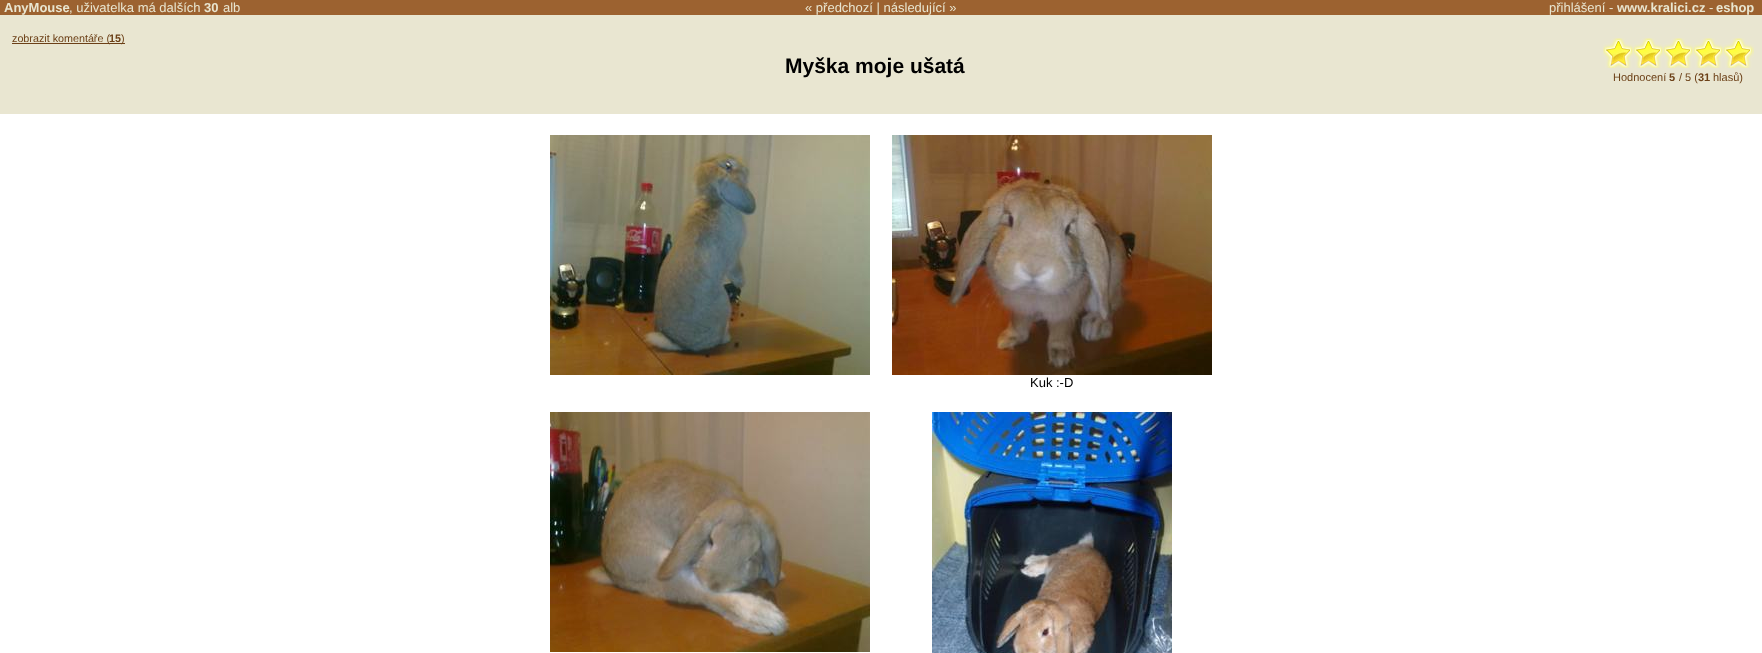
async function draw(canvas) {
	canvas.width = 1762;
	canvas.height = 653;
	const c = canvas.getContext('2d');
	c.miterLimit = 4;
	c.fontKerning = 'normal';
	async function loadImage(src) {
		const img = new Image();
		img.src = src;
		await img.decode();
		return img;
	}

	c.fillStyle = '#fff';
	c.fillRect(0, 0, 1762, 653);
	c.fillStyle = '#e9e6d1';
	c.fillRect(0, 15, 1762, 99);
	c.fillStyle = '#9c6230';
	c.fillRect(0, 0, 1762, 15);
	c.font = 'bold 13px Liberation Sans';
	c.fillStyle = '#e9e6d1';
	c.fillText('AnyMouse', 4, 12);
	c.font = '13px Liberation Sans';
	c.fillText(', uživatelka má dalších', 69, 12);
	c.font = 'bold 13px Liberation Sans';
	c.fillText('30', 204, 12);
	c.font = '13px Liberation Sans';
	for (const [text, x, y] of [
		['alb', 223, 12],
		['« předchozí | následující »', 805, 12],
		['přihlášení -', 1549, 12],
	]) {
		c.fillText(text, x, y);
	}
	c.font = 'bold 13px Liberation Sans';
	c.fillText('www.kralici.cz', 1617, 12);
	c.font = '13px Liberation Sans';
	c.fillText('-', 1709, 12);
	c.font = 'bold 13px Liberation Sans';
	c.fillText('eshop', 1716, 12);
	c.fillStyle = '#6c4017';
	c.fillRect(12, 43, 97, 1);
	c.font = '10.75px Liberation Sans';
	c.fillText('zobrazit komentáře (', 12, 42);
	c.fillRect(109, 43, 16, 1);
	c.font = 'bold 10.75px Liberation Sans';
	c.fillText('15', 109, 42);
	c.font = '10.75px Liberation Sans';
	c.fillText(')', 121, 42);
	c.font = 'bold 21px Liberation Sans';
	c.fillStyle = '#000';
	c.fillText('Myška moje ušatá', 785, 73);
	c.drawImage(await loadImage('img1.png'), 1603, 38, 151, 30);
	c.font = '11px Liberation Sans';
	c.fillStyle = '#6c4017';
	c.fillText('Hodnocení', 1613, 81);
	c.font = 'bold 11px Liberation Sans';
	c.fillText('5', 1669, 81);
	c.font = '11px Liberation Sans';
	c.fillText('/ 5 (', 1679, 81);
	c.font = 'bold 11px Liberation Sans';
	c.fillText('31', 1698, 81);
	c.font = '11px Liberation Sans';
	c.fillText('hlasů)', 1713, 81);
	c.drawImage(await loadImage('img2.png'), 550, 135, 320, 240);
	c.drawImage(await loadImage('img3.png'), 892, 135, 320, 240);
	c.font = '13px Liberation Sans';
	c.fillStyle = '#000';
	c.fillText('Kuk :-D', 1030, 387);
	c.drawImage(await loadImage('img4.png'), 550, 412, 320, 240);
	c.drawImage(await loadImage('img5.png'), 932, 412, 240, 241);
}

draw(document.querySelector('canvas'));
